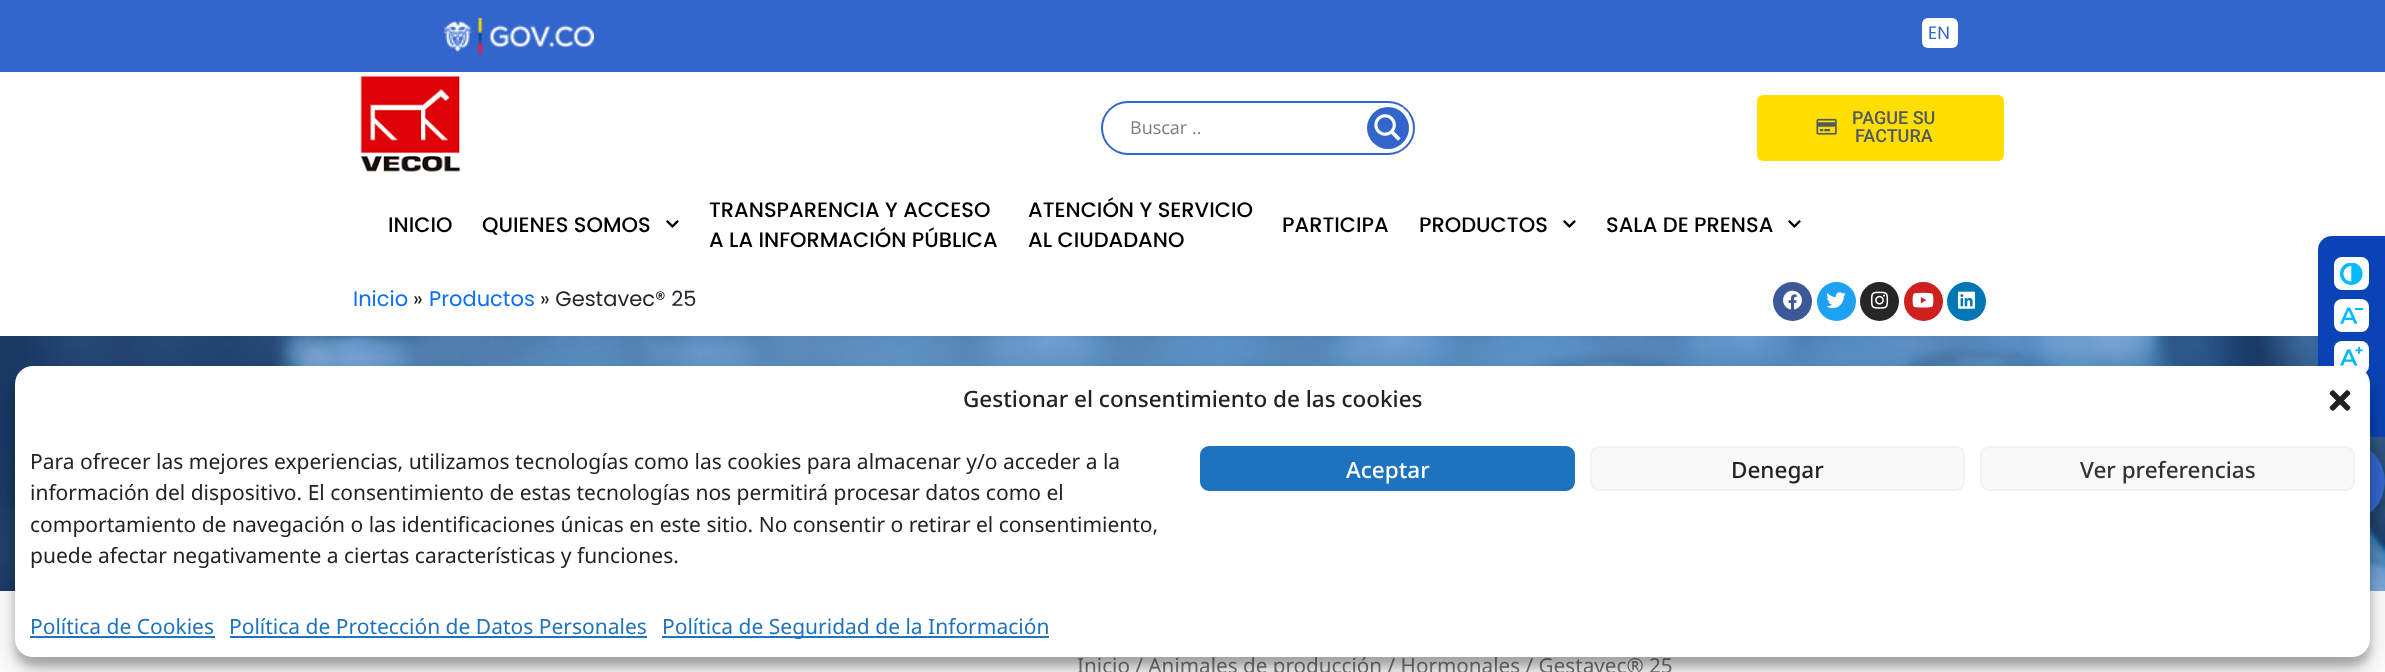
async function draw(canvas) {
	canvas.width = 2385;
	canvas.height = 672;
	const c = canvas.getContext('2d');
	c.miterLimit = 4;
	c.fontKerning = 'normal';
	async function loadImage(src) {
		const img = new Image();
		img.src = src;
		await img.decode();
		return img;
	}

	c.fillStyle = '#fff';
	c.fillRect(0, 0, 2385, 672);
	c.fillStyle = '#36c';
	c.fillRect(0, 0, 2385, 72);
	c.drawImage(await loadImage('img1.png'), 444, 18, 150, 36);
	c.fillStyle = '#fff';
	c.beginPath();
	c.roundRect(1922, 18, 36, 30, 6);
	c.fill();
	c.font = '18px Poppins';
	c.fillStyle = '#36c';
	c.fillText('EN', 1928, 39);
	c.drawImage(await loadImage('img2.png'), 360, 75, 101, 97);
	c.beginPath();
	c.roundRect(1102, 102, 312, 52, 26);
	c.strokeStyle = '#36c';
	c.lineWidth = 2;
	c.stroke();
	c.font = '18px Open Sans';
	c.fillStyle = '#7d7d7d';
	c.fillText('Buscar ..', 1130, 134);
	c.save();
	c.beginPath();
	c.rect(1367, 107, 42, 42);
	c.clip();
	c.fillStyle = '#ffffffa3';
	c.beginPath();
	c.moveTo(1365, 108);
	c.lineTo(1365, 150);
	c.lineTo(1400, 150);
	c.bezierCurveTo(1396, 152, 1392, 153, 1388, 153);
	c.lineTo(1218, 153);
	c.lineTo(1218, 102);
	c.lineTo(1388, 102);
	c.bezierCurveTo(1394, 102, 1399, 104, 1404, 108);
	c.closePath();
	c.moveTo(1407, 144);
	c.bezierCurveTo(1415, 135, 1415, 120, 1407, 111);
	c.closePath();
	c.fill('evenodd');
	c.restore();
	c.fillStyle = '#36c';
	c.beginPath();
	c.arc(1388, 128, 21, 0, 2 * Math.PI);
	c.fill();
	c.drawImage(await loadImage('img3.png'), 1374, 114, 27, 27);
	c.fillStyle = '#ffdf00';
	c.beginPath();
	c.roundRect(1757, 95, 247, 66, 6);
	c.fill();
	c.drawImage(await loadImage('img4.png'), 1816, 118, 21, 17);
	c.font = '500 18px Roboto';
	c.fillStyle = '#54595f';
	c.fillText('PAGUE SU', 1852, 124);
	c.fillText('FACTURA', 1855, 142);
	c.font = '500 21px Poppins';
	c.fillStyle = '#000';
	c.fillText('INICIO', 388, 232);
	c.fillText('QUIENES SOMOS', 482, 232);
	c.drawImage(await loadImage('img5.png'), 666, 220, 13, 8);
	for (const [text, x, y] of [
		['TRANSPARENCIA Y ACCESO', 709, 217],
		['A LA INFORMACIÓN PÚBLICA', 709, 247],
		['ATENCIÓN Y SERVICIO', 1028, 217],
		['AL CIUDADANO', 1028, 247],
		['PARTICIPA', 1282, 232],
		['PRODUCTOS', 1419, 232],
	]) {
		c.fillText(text, x, y);
	}
	c.drawImage(await loadImage('img5.png'), 1563, 220, 13, 8);
	c.fillText('SALA DE PRENSA', 1606, 232);
	c.drawImage(await loadImage('img5.png'), 1788, 220, 13, 8);
	c.font = '21px Poppins';
	c.fillStyle = '#0d6efd';
	c.fillText('Inicio', 353, 306);
	c.fillStyle = '#212529';
	c.fillText('»', 413, 306);
	c.fillStyle = '#0d6efd';
	c.fillText('Productos', 429, 306);
	c.fillStyle = '#212529';
	c.fillText('» Gestavec® 25', 540, 306);
	c.fillStyle = '#3b5998';
	c.beginPath();
	c.arc(1792.5, 301.5, 19.5, 0, 2 * Math.PI);
	c.fill();
	c.drawImage(await loadImage('img6.png'), 1783, 290, 19, 20);
	c.fillStyle = '#1da1f2';
	c.beginPath();
	c.arc(1836.5, 301.5, 19.5, 0, 2 * Math.PI);
	c.fill();
	c.drawImage(await loadImage('img7.png'), 1826, 292, 20, 17);
	c.fillStyle = '#262626';
	c.beginPath();
	c.arc(1879.5, 301.5, 19.5, 0, 2 * Math.PI);
	c.fill();
	c.drawImage(await loadImage('img8.png'), 1870, 291, 19, 18);
	c.fillStyle = '#cd201f';
	c.beginPath();
	c.arc(1923.5, 301.5, 19.5, 0, 2 * Math.PI);
	c.fill();
	c.drawImage(await loadImage('img9.png'), 1912, 292, 22, 16);
	c.fillStyle = '#0077b5';
	c.beginPath();
	c.arc(1966.5, 301.5, 19.5, 0, 2 * Math.PI);
	c.fill();
	c.drawImage(await loadImage('img10.png'), 1957, 291, 19, 18);
	c.drawImage(await loadImage('img14.png'), 0, 336, 2385, 255);
	c.fillStyle = '#0943b5';
	c.beginPath();
	c.roundRect(2318, 236, 67, 201, [14, 0, 0, 14]);
	c.fill();
	c.fillStyle = '#fff';
	c.beginPath();
	c.roundRect(2334, 257, 35, 33, 8);
	c.fill();
	c.drawImage(await loadImage('img11.png'), 2340, 263, 23, 22);
	c.beginPath();
	c.roundRect(2334, 299, 35, 33, 8);
	c.fill();
	c.drawImage(await loadImage('img12.png'), 2340, 307, 23, 17);
	c.beginPath();
	c.roundRect(2334, 341, 35, 33, 8);
	c.fill();
	c.drawImage(await loadImage('img13.png'), 2340, 346, 23, 20);
	c.fillStyle = '#00000029';
	c.filter = 'blur(4.5px)';
	c.beginPath();
	c.roundRect(2310, 447, 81, 81, 40.5);
	c.fill();
	c.filter = 'none';
	c.fillStyle = '#36c';
	c.beginPath();
	c.arc(2344.5, 481.5, 40.5, 0, 2 * Math.PI);
	c.fill();
	c.font = '20.7px Noto Sans';
	c.fillStyle = '#777';
	c.fillText('Inicio / Animales de producción / Hormonales / Gestavec® 25', 1077, 673);
	c.fillStyle = '#0000003b';
	c.filter = 'blur(4.5px)';
	c.beginPath();
	c.roundRect(15, 375, 2355, 291, 18);
	c.fill();
	c.filter = 'none';
	c.fillStyle = '#00000030';
	c.filter = 'blur(15px)';
	c.beginPath();
	c.roundRect(15, 381, 2355, 291, 18);
	c.fill();
	c.filter = 'none';
	c.fillStyle = '#fff';
	c.beginPath();
	c.roundRect(15, 366, 2355, 291, 18);
	c.fill();
	c.font = '500 22.5px Noto Sans';
	c.fillStyle = '#222';
	c.fillText('Gestionar el consentimiento de las cookies', 963, 407);
	c.drawImage(await loadImage('img15.png'), 2329, 390, 22, 21);
	c.font = '21px Noto Sans';
	for (const [text, x, y] of [
		['Para ofrecer las mejores experiencias, utilizamos tecnologías como las cookies para almacenar y/o acceder a la', 30, 469],
		['información del dispositivo. El consentimiento de estas tecnologías nos permitirá procesar datos como el', 30, 500],
		['comportamiento de navegación o las identificaciones únicas en este sitio. No consentir o retirar el consentimiento,', 30, 532],
		['puede afectar negativamente a ciertas características y funciones.', 30, 563],
	]) {
		c.fillText(text, x, y);
	}
	c.fillStyle = '#1e73be';
	c.beginPath();
	c.roundRect(1201, 447, 373, 43, 8);
	c.fill();
	c.strokeStyle = '#1e73be';
	c.stroke();
	c.font = '500 22.5px Noto Sans';
	c.fillStyle = '#fff';
	c.fillText('Aceptar', 1346, 478);
	c.fillStyle = '#f9f9f9';
	c.beginPath();
	c.roundRect(1591, 447, 373, 43, 8);
	c.fill();
	c.strokeStyle = '#f2f2f2';
	c.stroke();
	c.fillStyle = '#222';
	c.fillText('Denegar', 1731, 478);
	c.fillStyle = '#f9f9f9';
	c.beginPath();
	c.roundRect(1981, 447, 373, 43, 8);
	c.fill();
	c.stroke();
	c.fillStyle = '#333';
	c.fillText('Ver preferencias', 2080, 478);
	c.font = '21px Noto Sans';
	c.fillStyle = '#1e73be';
	c.fillText('Política de Cookies', 30, 634);
	c.fillRect(30, 636, 185, 2);
	c.fillText('Política de Protección de Datos Personales', 229, 634);
	c.fillRect(230, 636, 417, 2);
	c.fillRect(662, 636, 387, 2);
	c.fillText('Política de Seguridad de la Información', 662, 634);
}

draw(document.querySelector('canvas'));
